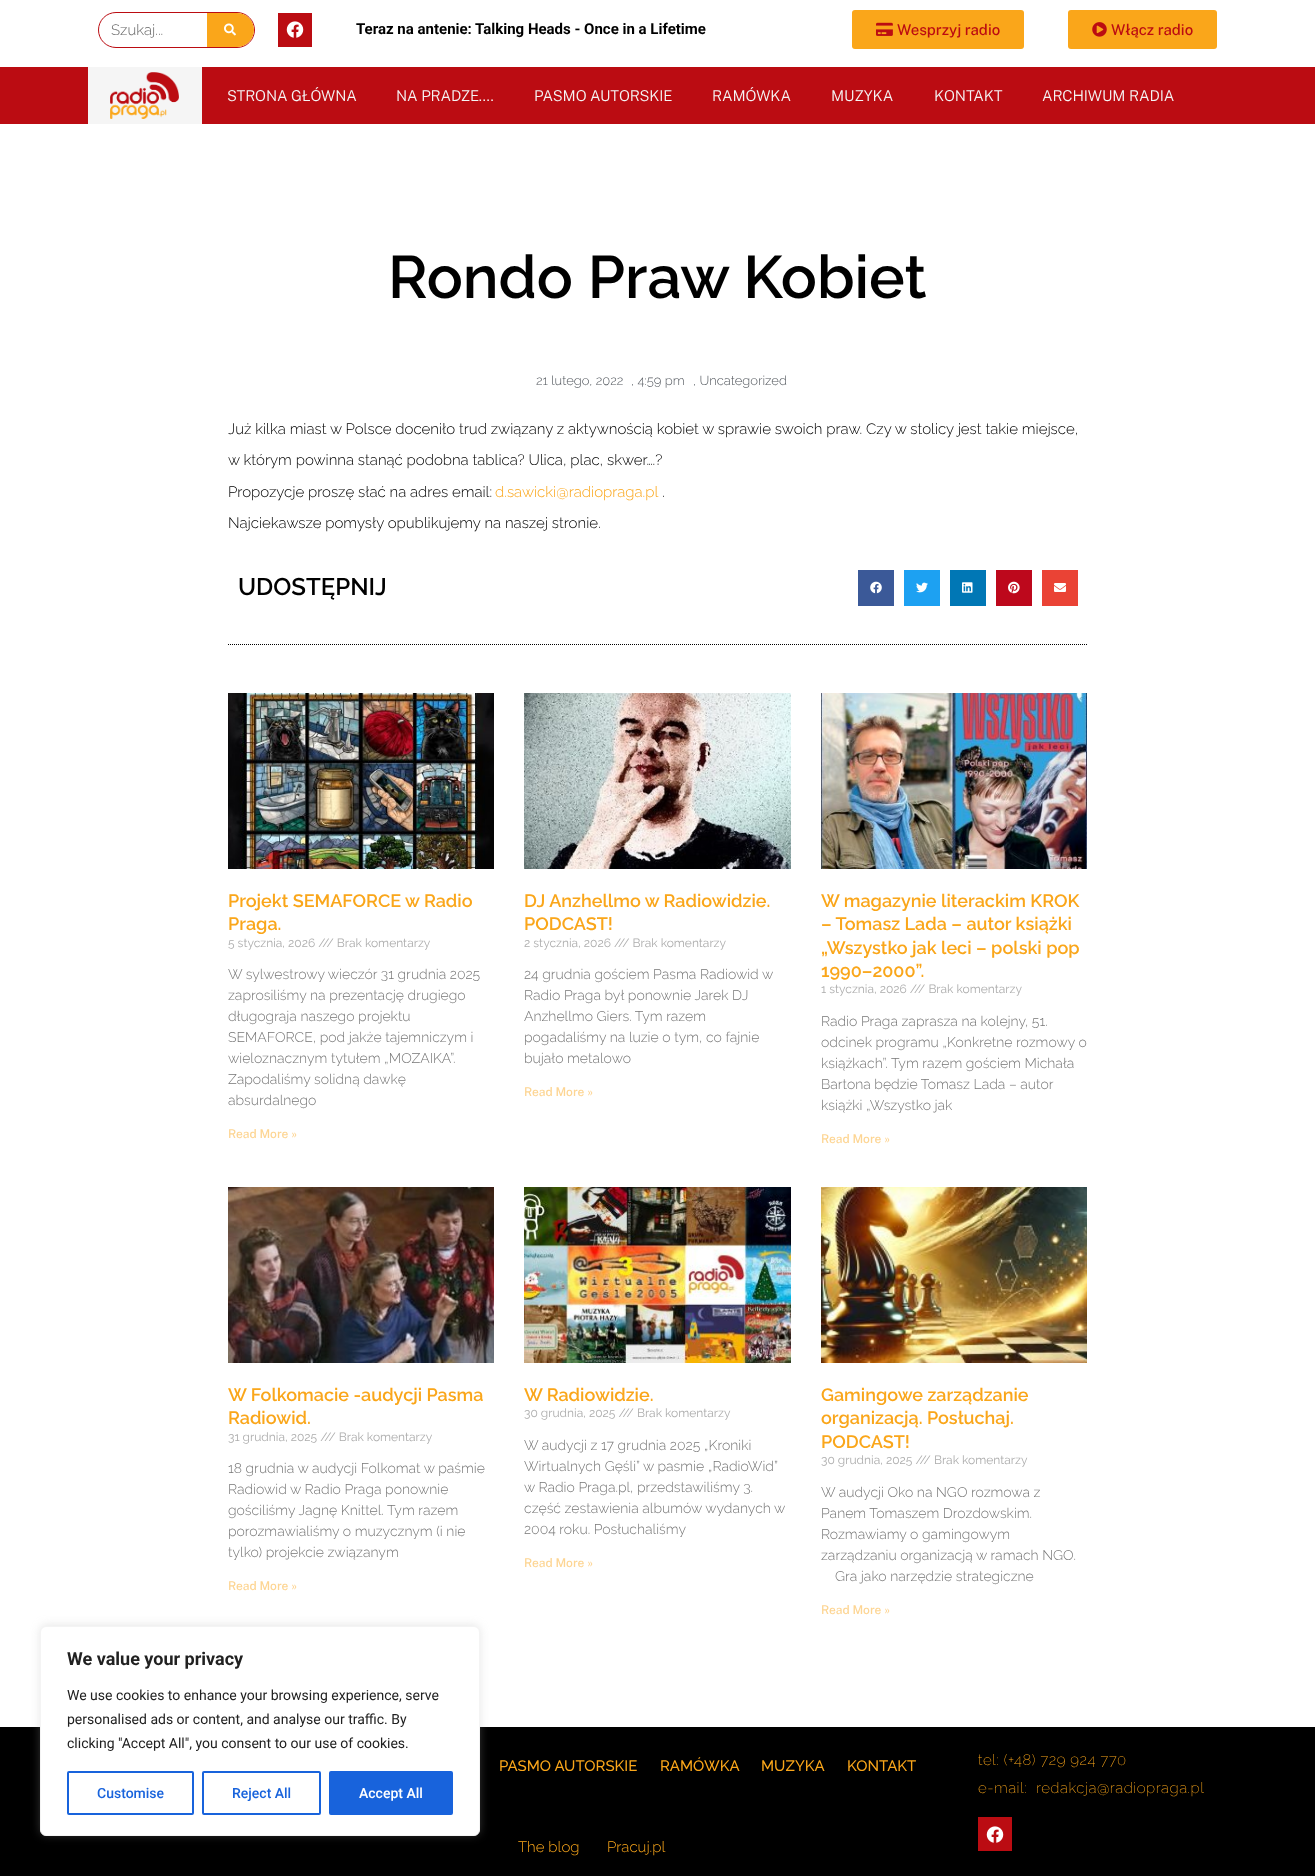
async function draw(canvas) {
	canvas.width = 1315;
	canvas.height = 1876;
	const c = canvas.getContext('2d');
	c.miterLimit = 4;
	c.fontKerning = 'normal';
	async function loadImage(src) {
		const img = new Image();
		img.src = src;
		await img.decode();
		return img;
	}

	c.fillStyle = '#fff';
	c.fillRect(0, 0, 1315, 1876);
	c.beginPath();
	c.roundRect(98.5, 12.5, 156, 35, 17.5);
	c.strokeStyle = '#bb0c12';
	c.stroke();
	c.font = '300 15px Raleway';
	c.fillStyle = '#666';
	c.fillText('Szukaj...', 111, 35);
	c.fillStyle = '#faa61a';
	c.beginPath();
	c.roundRect(207, 13, 47, 34, [0, 17, 17, 0]);
	c.fill();
	c.drawImage(await loadImage('img1.png'), 224, 23, 12, 13);
	c.fillStyle = '#bb0c12';
	c.fillRect(278, 13, 34, 34);
	c.drawImage(await loadImage('img2.png'), 286, 21, 18, 17);
	c.font = 'bold 15px Roboto';
	c.fillStyle = '#000';
	c.fillText('Teraz na antenie:', 356, 34);
	c.fillText('Talking Heads - Once in a Lifetime', 475, 34);
	c.fillStyle = '#faa61a';
	c.beginPath();
	c.roundRect(852, 10, 172, 39, 3);
	c.fill();
	c.drawImage(await loadImage('img3.png'), 876, 22, 17, 14);
	c.font = '500 15px Public Sans';
	c.fillStyle = '#bb0c12';
	c.fillText('Wesprzyj radio', 897, 35);
	c.fillStyle = '#faa61a';
	c.beginPath();
	c.roundRect(1068, 10, 149, 39, 3);
	c.fill();
	c.drawImage(await loadImage('img4.png'), 1092, 22, 15, 15);
	c.fillStyle = '#bb0c12';
	c.fillText('Włącz radio', 1111, 35);
	c.fillRect(0, 67, 1315, 57);
	c.fillStyle = '#f5f5f5';
	c.fillRect(88, 67, 114, 57);
	c.drawImage(await loadImage('img5.png'), 110, 72, 69, 47);
	c.letterSpacing = '-0.1px';
	c.font = '300 15px Public Sans';
	for (const [text, x, y] of [
		['STRONA GŁÓWNA', 227, 101],
		['NA PRADZE….', 396, 101],
		['PASMO AUTORSKIE', 534, 101],
		['RAMÓWKA', 712, 101],
		['MUZYKA', 831, 101],
		['KONTAKT', 934, 101],
		['ARCHIWUM RADIA', 1042, 101],
	]) {
		c.fillText(text, x, y);
	}
	c.letterSpacing = '0px';
	c.font = '600 60px Raleway';
	c.fillStyle = '#000';
	c.fillText('Rondo Praw Kobiet', 388, 298);
	c.font = '300 13px Raleway';
	c.fillStyle = '#54595f';
	for (const [text, x, y] of [
		['21 lutego, 2022', 536, 385],
		[', 4:59 pm', 631, 385],
		[', Uncategorized', 693, 385],
	]) {
		c.fillText(text, x, y);
	}
	c.font = '300 15px Raleway';
	c.fillStyle = '#000';
	for (const [text, x, y] of [
		['Już kilka miast w Polsce doceniło trud związany z aktywnością kobiet w sprawie swoich praw. Czy w stolicy jest takie miejsce,', 228, 434],
		['w którym powinna stanąć podobna tablica? Ulica, plac, skwer….?', 228, 465],
		['Propozycje proszę słać na adres email:', 228, 497],
	]) {
		c.fillText(text, x, y);
	}
	c.fillStyle = '#faa61a';
	c.fillText('d.sawicki@radiopraga.pl', 495, 497);
	c.fillStyle = '#000';
	c.fillText('.', 662, 497);
	c.fillText('Najciekawsze pomysły opublikujemy na naszej stronie.', 228, 528);
	c.font = '600 24px Raleway';
	c.fillText('UDOSTĘPNIJ', 238, 595);
	c.fillStyle = '#3b5998';
	c.fillRect(858, 570, 36, 36);
	c.drawImage(await loadImage('img6.png'), 870, 581, 12, 13);
	c.fillStyle = '#1da1f2';
	c.fillRect(904, 570, 36, 36);
	c.drawImage(await loadImage('img7.png'), 916, 582, 12, 11);
	c.fillStyle = '#0077b5';
	c.fillRect(950, 570, 36, 36);
	c.drawImage(await loadImage('img8.png'), 962, 582, 11, 11);
	c.fillStyle = '#bd081c';
	c.fillRect(996, 570, 36, 36);
	c.drawImage(await loadImage('img9.png'), 1008, 581, 12, 13);
	c.fillStyle = '#ea4335';
	c.fillRect(1042, 570, 36, 36);
	c.drawImage(await loadImage('img10.png'), 1054, 583, 12, 9);
	c.beginPath();
	c.moveTo(228, 644.5);
	c.lineTo(1088, 644.5);
	c.strokeStyle = '#000';
	c.setLineDash([1, 1]);
	c.stroke();
	c.drawImage(await loadImage('img11.png'), 228, 693, 266, 176);
	c.font = '600 18px Raleway';
	c.fillStyle = '#faa61a';
	c.fillText('Projekt SEMAFORCE w Radio', 228, 907);
	c.fillText('Praga.', 228, 930);
	c.font = '12px Raleway';
	c.fillStyle = '#adadad';
	c.fillText('5 stycznia, 2026 /// Brak komentarzy', 228, 947);
	c.font = '300 14px Raleway';
	c.fillStyle = '#777';
	for (const [text, x, y] of [
		['W sylwestrowy wieczór 31 grudnia 2025', 228, 979],
		['zaprosiliśmy na prezentację drugiego', 228, 1000],
		['długograja naszego projektu', 228, 1021],
		['SEMAFORCE, pod jakże tajemniczym i', 228, 1042],
		['wieloznacznym tytułem „MOZAIKA”.', 228, 1063],
		['Zapodaliśmy solidną dawkę', 228, 1084],
		['absurdalnego', 228, 1105],
	]) {
		c.fillText(text, x, y);
	}
	c.font = '500 12px Public Sans';
	c.fillStyle = '#fdd593';
	c.fillText('Read More »', 228, 1138);
	c.drawImage(await loadImage('img12.png'), 524, 693, 267, 176);
	c.font = '600 18px Raleway';
	c.fillStyle = '#faa61a';
	c.fillText('DJ Anzhellmo w Radiowidzie.', 524, 907);
	c.fillText('PODCAST!', 524, 930);
	c.font = '12px Raleway';
	c.fillStyle = '#adadad';
	c.fillText('2 stycznia, 2026 /// Brak komentarzy', 524, 947);
	c.font = '300 14px Raleway';
	c.fillStyle = '#777';
	for (const [text, x, y] of [
		['24 grudnia gościem Pasma Radiowid w', 524, 979],
		['Radio Praga był ponownie Jarek DJ', 524, 1000],
		['Anzhellmo Giers. Tym razem', 524, 1021],
		['pogadaliśmy na luzie o tym, co fajnie', 524, 1042],
		['bujało metalowo', 524, 1063],
	]) {
		c.fillText(text, x, y);
	}
	c.font = '500 12px Public Sans';
	c.fillStyle = '#fdd593';
	c.fillText('Read More »', 524, 1096);
	c.drawImage(await loadImage('img13.png'), 821, 693, 266, 176);
	c.font = '600 18px Raleway';
	c.fillStyle = '#faa61a';
	for (const [text, x, y] of [
		['W magazynie literackim KROK', 821, 907],
		['– Tomasz Lada – autor książki', 821, 930],
		['„Wszystko jak leci – polski pop', 821, 954],
		['1990–2000”.', 821, 977],
	]) {
		c.fillText(text, x, y);
	}
	c.font = '12px Raleway';
	c.fillStyle = '#adadad';
	c.fillText('1 stycznia, 2026 /// Brak komentarzy', 821, 993);
	c.font = '300 14px Raleway';
	c.fillStyle = '#777';
	for (const [text, x, y] of [
		['Radio Praga zaprasza na kolejny, 51.', 821, 1026],
		['odcinek programu „Konkretne rozmowy o', 821, 1047],
		['książkach”. Tym razem gościem Michała', 821, 1068],
		['Bartona będzie Tomasz Lada – autor', 821, 1089],
		['książki „Wszystko jak', 821, 1110],
	]) {
		c.fillText(text, x, y);
	}
	c.font = '500 12px Public Sans';
	c.fillStyle = '#fdd593';
	c.fillText('Read More »', 821, 1143);
	c.drawImage(await loadImage('img14.png'), 228, 1187, 266, 176);
	c.font = '600 18px Raleway';
	c.fillStyle = '#faa61a';
	c.fillText('W Folkomacie -audycji Pasma', 228, 1401);
	c.fillText('Radiowid.', 228, 1424);
	c.font = '12px Raleway';
	c.fillStyle = '#adadad';
	c.fillText('31 grudnia, 2025 /// Brak komentarzy', 228, 1441);
	c.font = '300 14px Raleway';
	c.fillStyle = '#777';
	for (const [text, x, y] of [
		['18 grudnia w audycji Folkomat w paśmie', 228, 1473],
		['Radiowid w Radio Praga ponownie', 228, 1494],
		['gościliśmy Jagnę Knittel. Tym razem', 228, 1515],
		['porozmawialiśmy o muzycznym (i nie', 228, 1536],
		['tylko) projekcie związanym', 228, 1557],
	]) {
		c.fillText(text, x, y);
	}
	c.font = '500 12px Public Sans';
	c.fillStyle = '#fdd593';
	c.fillText('Read More »', 228, 1590);
	c.drawImage(await loadImage('img15.png'), 524, 1187, 267, 176);
	c.font = '600 18px Raleway';
	c.fillStyle = '#faa61a';
	c.fillText('W Radiowidzie.', 524, 1401);
	c.font = '12px Raleway';
	c.fillStyle = '#adadad';
	c.fillText('30 grudnia, 2025 /// Brak komentarzy', 524, 1417);
	c.font = '300 14px Raleway';
	c.fillStyle = '#777';
	for (const [text, x, y] of [
		['W audycji z 17 grudnia 2025 „Kroniki', 524, 1450],
		['Wirtualnych Gęśli” w pasmie „RadioWid”', 524, 1471],
		['w Radio Praga.pl, przedstawiliśmy 3.', 524, 1492],
		['część zestawienia albumów wydanych w', 524, 1513],
		['2004 roku. Posłuchaliśmy', 524, 1534],
	]) {
		c.fillText(text, x, y);
	}
	c.font = '500 12px Public Sans';
	c.fillStyle = '#fdd593';
	c.fillText('Read More »', 524, 1567);
	c.drawImage(await loadImage('img16.png'), 821, 1187, 266, 176);
	c.font = '600 18px Raleway';
	c.fillStyle = '#faa61a';
	for (const [text, x, y] of [
		['Gamingowe zarządzanie', 821, 1401],
		['organizacją. Posłuchaj.', 821, 1424],
		['PODCAST!', 821, 1448],
	]) {
		c.fillText(text, x, y);
	}
	c.font = '12px Raleway';
	c.fillStyle = '#adadad';
	c.fillText('30 grudnia, 2025 /// Brak komentarzy', 821, 1464);
	c.font = '300 14px Raleway';
	c.fillStyle = '#777';
	for (const [text, x, y] of [
		['W audycji Oko na NGO rozmowa z', 821, 1497],
		['Panem Tomaszem Drozdowskim.', 821, 1518],
		['Rozmawiamy o gamingowym', 821, 1539],
		['zarządzaniu organizacją w ramach NGO.', 821, 1560],
		['Gra jako narzędzie strategiczne', 835, 1581],
	]) {
		c.fillText(text, x, y);
	}
	c.font = '500 12px Public Sans';
	c.fillStyle = '#fdd593';
	c.fillText('Read More »', 821, 1614);
	c.fillStyle = '#000';
	c.fillRect(0, 1727, 1315, 149);
	c.font = '500 15px Raleway';
	c.fillStyle = '#faa61a';
	for (const [text, x, y] of [
		['PASMO AUTORSKIE', 499, 1771],
		['RAMÓWKA', 660, 1771],
		['MUZYKA', 761, 1771],
		['KONTAKT', 847, 1771],
	]) {
		c.fillText(text, x, y);
	}
	c.font = '300 15px Raleway';
	c.fillText('The blog', 518, 1852);
	c.fillText('Pracuj.pl', 607, 1852);
	c.letterSpacing = '0.5px';
	c.font = '200 15px Raleway';
	c.fillText('tel: (+48) 729 924 770', 978, 1765);
	c.fillText('e-mail:  redakcja@radiopraga.pl', 978, 1793);
	c.fillStyle = '#bb0c12';
	c.fillRect(978, 1817, 34, 34);
	c.drawImage(await loadImage('img2.png'), 986, 1826, 18, 17);
	c.fillStyle = '#acabab4d';
	c.filter = 'blur(5px)';
	c.beginPath();
	c.roundRect(40, 1625, 440, 210, 6);
	c.fill();
	c.filter = 'none';
	c.fillStyle = '#fff';
	c.beginPath();
	c.roundRect(40.5, 1626.5, 439, 209, 5.5);
	c.fill();
	c.strokeStyle = '#f4f4f4';
	c.setLineDash([]);
	c.stroke();
	c.letterSpacing = '0px';
	c.font = 'bold 18px Roboto';
	c.fillStyle = '#212121';
	c.fillText('We value your privacy', 67, 1665);
	c.font = '14px Roboto';
	for (const [text, x, y] of [
		['We use cookies to enhance your browsing experience, serve', 67, 1700],
		['personalised ads or content, and analyse our traffic. By', 67, 1724],
		['clicking "Accept All", you consent to our use of cookies.', 67, 1748],
	]) {
		c.fillText(text, x, y);
	}
	c.beginPath();
	c.roundRect(68, 1772, 125, 42, 1);
	c.strokeStyle = '#1863dc';
	c.lineWidth = 2;
	c.stroke();
	c.font = '500 14px Roboto';
	c.fillStyle = '#1863dc';
	c.fillText('Customise', 97, 1798);
	c.beginPath();
	c.roundRect(203, 1772, 117, 42, 1);
	c.stroke();
	c.fillText('Reject All', 232, 1798);
	c.beginPath();
	c.roundRect(330, 1772, 122, 42, 1);
	c.fill();
	c.stroke();
	c.fillStyle = '#fff';
	c.fillText('Accept All', 359, 1798);
}

draw(document.querySelector('canvas'));
